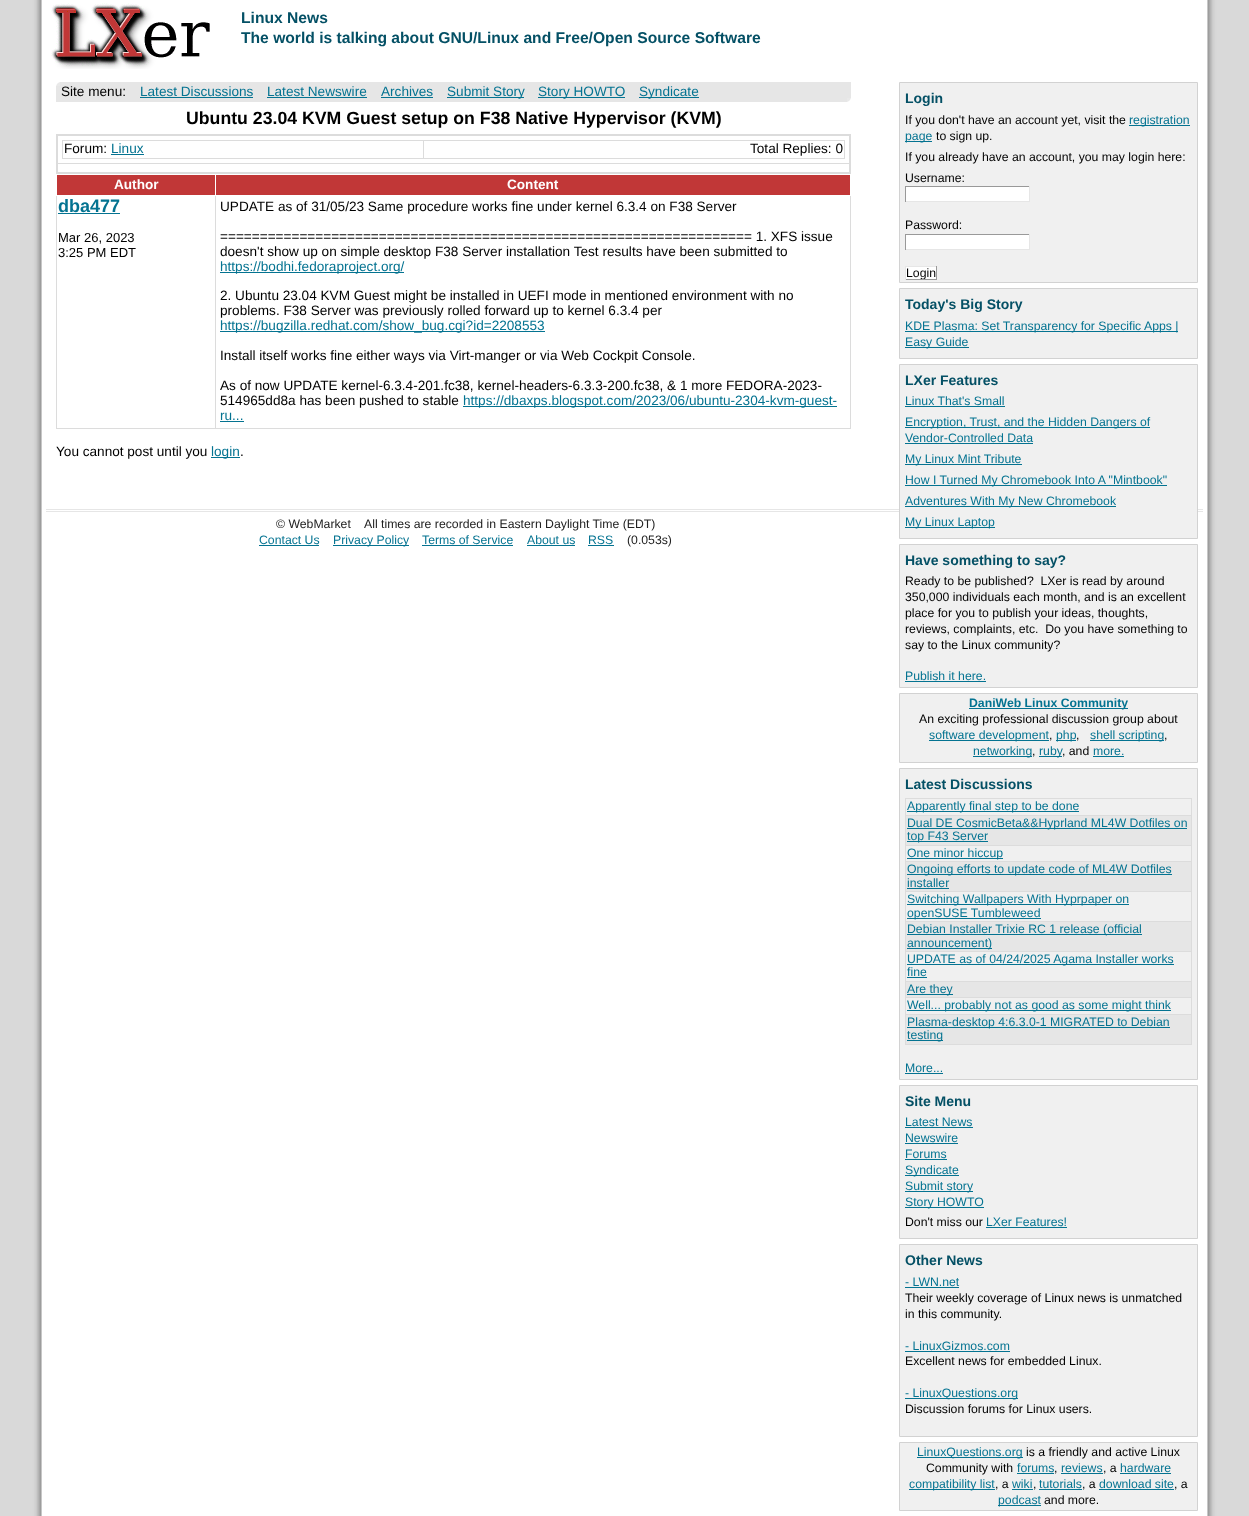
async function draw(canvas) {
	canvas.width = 1249;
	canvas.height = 1516;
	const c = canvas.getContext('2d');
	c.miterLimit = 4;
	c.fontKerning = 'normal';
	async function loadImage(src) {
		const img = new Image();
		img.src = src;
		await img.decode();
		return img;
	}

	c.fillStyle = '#d9d9d9';
	c.fillRect(0, 0, 1249, 1516);
	c.fillStyle = '#fff';
	c.fillRect(42, 0, 1165, 1516);
	c.drawImage(await loadImage('img1.png'), 31, 0, 11, 1516);
	c.drawImage(await loadImage('img2.png'), 51, 3, 159, 66);
	c.font = 'bold 15.65px Liberation Sans';
	c.fillStyle = '#045065';
	c.fillText('Linux News', 241, 23);
	c.fillText('The world is talking about GNU/Linux and Free/Open Source Software', 241, 43);
	c.drawImage(await loadImage('img3.png'), 1207, 0, 11, 1516);
	c.fillStyle = '#e6e6e6';
	c.fillRect(56, 82, 795, 20);
	c.drawImage(await loadImage('img4.png'), 56, 82, 4, 4);
	c.font = '13.6px Liberation Sans';
	c.fillStyle = '#000';
	c.fillText('Site menu:', 61, 96);
	c.fillStyle = '#047391';
	c.fillText('Latest Discussions', 140, 96);
	c.fillRect(140, 97, 113, 1);
	c.fillText('Latest Newswire', 267, 96);
	c.fillRect(267, 97, 100, 1);
	c.fillText('Archives', 381, 96);
	c.fillRect(381, 97, 52, 1);
	c.fillRect(447, 97, 77, 1);
	c.fillText('Submit Story', 447, 96);
	c.fillRect(538, 97, 87, 1);
	c.fillText('Story HOWTO', 538, 96);
	c.fillRect(639, 97, 60, 1);
	c.fillText('Syndicate', 639, 96);
	c.drawImage(await loadImage('img5.png'), 847, 98, 4, 4);
	c.font = 'bold 17.7px Liberation Sans';
	c.fillStyle = '#000';
	c.fillText('Ubuntu 23.04 KVM Guest setup on F38 Native Hypervisor (KVM)', 186, 124);
	for (const [x, y, w, h, color] of [
		[56, 134, 795, 1, '#dcdcdc'],
		[850, 134, 1, 40, '#dcdcdc'],
		[56, 173, 795, 1, '#dcdcdc'],
		[56, 134, 1, 40, '#dcdcdc'],
		[57, 135, 793, 1, '#dcdcdc'],
		[57, 163, 793, 1, '#dcdcdc'],
		[849, 163, 1, 10, '#dcdcdc'],
		[849, 135, 1, 29, '#dcdcdc'],
		[57, 172, 793, 1, '#dcdcdc'],
		[57, 163, 1, 10, '#dcdcdc'],
		[57, 135, 1, 29, '#dcdcdc'],
		[423, 140, 422, 1, '#dcdcdc'],
		[844, 140, 1, 19, '#dcdcdc'],
		[423, 158, 422, 1, '#dcdcdc'],
		[423, 140, 1, 19, '#dcdcdc'],
		[62, 140, 362, 1, '#dcdcdc'],
		[62, 158, 362, 1, '#dcdcdc'],
		[62, 140, 1, 19, '#dcdcdc'],
	]) {
		c.fillStyle = color;
		c.fillRect(x, y, w, h);
	}
	c.font = '13.6px Liberation Sans';
	c.fillStyle = '#000';
	c.fillText('Forum:', 64, 153);
	c.fillStyle = '#047391';
	c.fillText('Linux', 111, 153);
	c.fillRect(111, 154, 33, 1);
	c.fillStyle = '#000';
	c.fillText('Total Replies: 0', 750, 153);
	for (const [x, y, w, h, color] of [
		[57, 175, 158, 20, '#c13737'],
		[850, 195, 1, 234, '#dcdcdc'],
		[215, 428, 636, 1, '#dcdcdc'],
		[215, 195, 1, 234, '#dcdcdc'],
		[56, 428, 160, 1, '#dcdcdc'],
		[56, 195, 1, 234, '#dcdcdc'],
		[56, 195, 1, 1, '#fff'],
	]) {
		c.fillStyle = color;
		c.fillRect(x, y, w, h);
	}
	c.font = 'bold 13.6px Liberation Sans';
	c.fillText('Author', 114, 189);
	for (const [x, y, w, h, color] of [
		[216, 175, 634, 20, '#c13737'],
		[850, 195, 1, 1, '#fff'],
		[215, 195, 1, 1, '#fff'],
	]) {
		c.fillStyle = color;
		c.fillRect(x, y, w, h);
	}
	c.fillText('Content', 507, 189);
	c.font = 'bold 18px Liberation Sans';
	c.fillStyle = '#047391';
	c.fillText('dba477', 58, 212);
	c.fillRect(58, 213, 62, 1);
	c.font = '13px Liberation Sans';
	c.fillStyle = '#000';
	c.fillText('Mar 26, 2023', 58, 242);
	c.fillText('3:25 PM EDT', 58, 257);
	c.font = '13.6px Liberation Sans';
	for (const [text, x, y] of [
		['UPDATE as of 31/05/23 Same procedure works fine under kernel 6.3.4 on F38 Server', 220, 211],
		['=================================================================== 1. XFS issue', 220, 241],
		['doesn\'t show up on simple desktop F38 Server installation Test results have been submitted to', 220, 256],
	]) {
		c.fillText(text, x, y);
	}
	c.fillStyle = '#047391';
	c.fillRect(220, 272, 184, 1);
	c.fillText('https://bodhi.fedoraproject.org/', 220, 271);
	c.fillStyle = '#000';
	c.fillText('2. Ubuntu 23.04 KVM Guest might be installed in UEFI mode in mentioned environment with no', 220, 300);
	c.fillText('problems. F38 Server was previously rolled forward up to kernel 6.3.4 per', 220, 315);
	c.fillStyle = '#047391';
	c.fillRect(220, 331, 325, 1);
	c.fillText('https://bugzilla.redhat.com/show_bug.cgi?id=2208553', 220, 330);
	c.fillStyle = '#000';
	for (const [text, x, y] of [
		['Install itself works fine either ways via Virt-manger or via Web Cockpit Console.', 220, 360],
		['As of now UPDATE kernel-6.3.4-201.fc38, kernel-headers-6.3.3-200.fc38, & 1 more FEDORA-2023-', 220, 390],
		['514965dd8a has been pushed to stable', 220, 405],
	]) {
		c.fillText(text, x, y);
	}
	c.fillStyle = '#047391';
	c.fillRect(463, 406, 374, 1);
	c.fillText('https://dbaxps.blogspot.com/2023/06/ubuntu-2304-kvm-guest-', 463, 405);
	c.fillText('ru...', 220, 420);
	c.fillRect(220, 421, 24, 1);
	c.fillStyle = '#000';
	c.fillText('You cannot post until you', 56, 456);
	c.fillStyle = '#047391';
	c.fillRect(211, 457, 29, 1);
	c.fillText('login', 211, 456);
	c.fillStyle = '#000';
	c.fillText('.', 240, 456);
	c.fillStyle = '#f0f0f0';
	c.beginPath();
	c.rect(899.5, 82.5, 298, 200);
	c.fill();
	c.strokeStyle = '#d2d2d2';
	c.stroke();
	c.font = 'bold 14px Liberation Sans';
	c.fillStyle = '#045065';
	c.fillText('Login', 905, 103);
	c.font = '12.25px Liberation Sans';
	c.fillStyle = '#000';
	c.fillText('If you don\'t have an account yet, visit the', 905, 124);
	c.fillStyle = '#047391';
	c.fillRect(1129, 125, 61, 1);
	c.fillText('registration', 1129, 124);
	c.fillRect(905, 141, 27, 1);
	c.fillText('page', 905, 140);
	c.fillStyle = '#000';
	for (const [text, x, y] of [
		['to sign up.', 936, 140],
		['If you already have an account, you may login here:', 905, 161],
		['Username:', 905, 182],
	]) {
		c.fillText(text, x, y);
	}
	for (const [x, y, w, h, color] of [
		[906, 187, 123, 14, '#fff'],
		[905, 186, 125, 1, '#999'],
		[1029, 186, 1, 16, '#e6e6e6'],
		[905, 201, 125, 1, '#e6e6e6'],
		[905, 186, 1, 16, '#999'],
	]) {
		c.fillStyle = color;
		c.fillRect(x, y, w, h);
	}
	c.fillStyle = '#000';
	c.fillText('Password:', 905, 229);
	for (const [x, y, w, h, color] of [
		[906, 235, 123, 14, '#fff'],
		[905, 234, 125, 1, '#999'],
		[1029, 234, 1, 16, '#e6e6e6'],
		[905, 249, 125, 1, '#e6e6e6'],
		[905, 234, 1, 16, '#999'],
		[906, 267, 30, 12, '#fff'],
		[905, 266, 32, 1, '#e6e6e6'],
		[936, 266, 1, 14, '#999'],
		[905, 279, 32, 1, '#999'],
		[905, 266, 1, 14, '#e6e6e6'],
	]) {
		c.fillStyle = color;
		c.fillRect(x, y, w, h);
	}
	c.save();
	c.beginPath();
	c.rect(906, 267, 30, 12);
	c.clip();
	c.fillStyle = '#000';
	c.fillText('Login', 906, 277);
	c.restore();
	c.fillStyle = '#f0f0f0';
	c.beginPath();
	c.rect(899.5, 288.5, 298, 70);
	c.fill();
	c.stroke();
	c.font = 'bold 14px Liberation Sans';
	c.fillStyle = '#045065';
	c.fillText('Today\'s Big Story', 905, 309);
	c.fillStyle = '#047391';
	c.fillRect(905, 331, 273, 1);
	c.font = '12.25px Liberation Sans';
	c.fillText('KDE Plasma: Set Transparency for Specific Apps |', 905, 330);
	c.fillRect(905, 347, 64, 1);
	c.fillText('Easy Guide', 905, 346);
	c.fillStyle = '#e6e6e6';
	c.fillRect(46, 509, 1157, 1);
	c.fillRect(46, 511, 1157, 1);
	c.fillStyle = '#f0f0f0';
	c.beginPath();
	c.rect(899.5, 364.5, 298, 174);
	c.fill();
	c.stroke();
	c.font = 'bold 14px Liberation Sans';
	c.fillStyle = '#045065';
	c.fillText('LXer Features', 905, 385);
	c.font = '12.25px Liberation Sans';
	c.fillStyle = '#047391';
	c.fillText('Linux That\'s Small', 905, 405);
	c.fillRect(905, 406, 100, 1);
	c.fillRect(905, 427, 245, 1);
	c.fillText('Encryption, Trust, and the Hidden Dangers of', 905, 426);
	c.fillText('Vendor-Controlled Data', 905, 442);
	c.fillRect(905, 443, 128, 1);
	c.fillRect(905, 464, 117, 1);
	c.fillText('My Linux Mint Tribute', 905, 463);
	c.fillRect(905, 485, 262, 1);
	c.fillText('How I Turned My Chromebook Into A "Mintbook"', 905, 484);
	c.fillRect(905, 506, 211, 1);
	c.fillText('Adventures With My New Chromebook', 905, 505);
	c.fillRect(905, 527, 90, 1);
	c.fillText('My Linux Laptop', 905, 526);
	c.fillStyle = '#f0f0f0';
	c.beginPath();
	c.rect(899.5, 544.5, 298, 143);
	c.fill();
	c.stroke();
	c.font = 'bold 14px Liberation Sans';
	c.fillStyle = '#045065';
	c.fillText('Have something to say?', 905, 565);
	c.font = '12.25px Liberation Sans';
	c.fillStyle = '#000';
	for (const [text, x, y] of [
		['Ready to be published?  LXer is read by around', 905, 585],
		['350,000 individuals each month, and is an excellent', 905, 601],
		['place for you to publish your ideas, thoughts,', 905, 617],
		['reviews, complaints, etc.  Do you have something to', 905, 633],
		['say to the Linux community?', 905, 649],
	]) {
		c.fillText(text, x, y);
	}
	c.fillStyle = '#047391';
	c.fillText('Publish it here.', 905, 680);
	c.fillRect(905, 681, 81, 1);
	c.fillStyle = '#f0f0f0';
	c.beginPath();
	c.rect(899.5, 693.5, 298, 69);
	c.fill();
	c.stroke();
	c.fillStyle = '#047391';
	c.fillRect(969, 708, 159, 1);
	c.font = 'bold 12.25px Liberation Sans';
	c.fillText('DaniWeb Linux Community', 969, 707);
	c.font = '12.25px Liberation Sans';
	c.fillStyle = '#000';
	c.fillText('An exciting professional discussion group about', 919, 723);
	c.fillStyle = '#047391';
	c.fillRect(929, 740, 120, 1);
	c.fillText('software development', 929, 739);
	c.fillStyle = '#000';
	c.fillText(',', 1049, 739);
	c.fillStyle = '#047391';
	c.fillRect(1056, 740, 20, 1);
	c.fillText('php', 1056, 739);
	c.fillStyle = '#000';
	c.fillText(',', 1076, 739);
	c.fillStyle = '#047391';
	c.fillRect(1090, 740, 74, 1);
	c.fillText('shell scripting', 1090, 739);
	c.fillStyle = '#000';
	c.fillText(',', 1164, 739);
	c.fillStyle = '#047391';
	c.fillRect(973, 756, 59, 1);
	c.fillText('networking', 973, 755);
	c.fillStyle = '#000';
	c.fillText(',', 1032, 755);
	c.fillStyle = '#047391';
	c.fillRect(1039, 756, 23, 1);
	c.fillText('ruby', 1039, 755);
	c.fillStyle = '#000';
	c.fillText(', and', 1062, 755);
	c.fillStyle = '#047391';
	c.fillText('more.', 1093, 755);
	c.fillRect(1093, 756, 31, 1);
	c.fillStyle = '#f0f0f0';
	c.beginPath();
	c.rect(899.5, 768.5, 298, 311);
	c.fill();
	c.stroke();
	c.font = 'bold 14px Liberation Sans';
	c.fillStyle = '#045065';
	c.fillText('Latest Discussions', 905, 789);
	for (const [x, y, w, h, color] of [
		[905, 798, 287, 1, '#dcdcdc'],
		[905, 815, 287, 1, '#dcdcdc'],
		[905, 845, 287, 1, '#dcdcdc'],
		[905, 861, 287, 1, '#dcdcdc'],
		[905, 891, 287, 1, '#dcdcdc'],
		[905, 921, 287, 1, '#dcdcdc'],
		[905, 951, 287, 1, '#dcdcdc'],
		[905, 981, 287, 1, '#dcdcdc'],
		[905, 997, 287, 1, '#dcdcdc'],
		[905, 1014, 287, 1, '#dcdcdc'],
		[1191, 1014, 1, 31, '#dcdcdc'],
		[1191, 997, 1, 18, '#dcdcdc'],
		[1191, 981, 1, 17, '#dcdcdc'],
		[1191, 951, 1, 31, '#dcdcdc'],
		[1191, 921, 1, 31, '#dcdcdc'],
		[1191, 891, 1, 31, '#dcdcdc'],
		[1191, 861, 1, 31, '#dcdcdc'],
		[1191, 845, 1, 17, '#dcdcdc'],
		[1191, 815, 1, 31, '#dcdcdc'],
		[1191, 798, 1, 18, '#dcdcdc'],
		[905, 1044, 287, 1, '#dcdcdc'],
		[905, 1014, 1, 31, '#dcdcdc'],
		[905, 997, 1, 18, '#dcdcdc'],
		[905, 981, 1, 17, '#dcdcdc'],
		[905, 951, 1, 31, '#dcdcdc'],
		[905, 921, 1, 31, '#dcdcdc'],
		[905, 891, 1, 31, '#dcdcdc'],
		[905, 861, 1, 31, '#dcdcdc'],
		[905, 845, 1, 17, '#dcdcdc'],
		[905, 815, 1, 31, '#dcdcdc'],
		[905, 798, 1, 18, '#dcdcdc'],
		[907, 811, 172, 1, '#047391'],
	]) {
		c.fillStyle = color;
		c.fillRect(x, y, w, h);
	}
	c.font = '12.25px Liberation Sans';
	c.fillText('Apparently final step to be done', 907, 810);
	c.fillStyle = '#e6e6e6';
	c.fillRect(906, 816, 285, 29);
	c.fillStyle = '#047391';
	c.fillRect(907, 828, 280, 1);
	c.fillText('Dual DE CosmicBeta&&Hyprland ML4W Dotfiles on', 907, 827);
	c.fillRect(907, 841, 81, 1);
	c.fillText('top F43 Server', 907, 840);
	c.fillRect(907, 858, 96, 1);
	c.fillText('One minor hiccup', 907, 857);
	c.fillStyle = '#e6e6e6';
	c.fillRect(906, 862, 285, 29);
	c.fillStyle = '#047391';
	c.fillRect(907, 874, 265, 1);
	c.fillText('Ongoing efforts to update code of ML4W Dotfiles', 907, 873);
	c.fillText('installer', 907, 887);
	c.fillRect(907, 888, 42, 1);
	c.fillRect(907, 904, 222, 1);
	c.fillText('Switching Wallpapers With Hyprpaper on', 907, 903);
	c.fillRect(907, 918, 134, 1);
	c.fillText('openSUSE Tumbleweed', 907, 917);
	c.fillStyle = '#e6e6e6';
	c.fillRect(906, 922, 285, 29);
	c.fillStyle = '#047391';
	c.fillRect(907, 934, 235, 1);
	c.fillText('Debian Installer Trixie RC 1 release (official', 907, 933);
	c.fillRect(907, 948, 85, 1);
	c.fillText('announcement)', 907, 947);
	c.fillRect(907, 964, 267, 1);
	c.fillText('UPDATE as of 04/24/2025 Agama Installer works', 907, 963);
	c.fillText('fine', 907, 976);
	for (const [x, y, w, h, color] of [
		[907, 977, 20, 1, '#047391'],
		[906, 982, 285, 15, '#e6e6e6'],
		[907, 994, 46, 1, '#047391'],
	]) {
		c.fillStyle = color;
		c.fillRect(x, y, w, h);
	}
	c.fillText('Are they', 907, 993);
	c.fillRect(907, 1010, 264, 1);
	c.fillText('Well... probably not as good as some might think', 907, 1009);
	c.fillStyle = '#e6e6e6';
	c.fillRect(906, 1015, 285, 29);
	c.fillStyle = '#047391';
	c.fillRect(907, 1027, 263, 1);
	c.fillText('Plasma-desktop 4:6.3.0-1 MIGRATED to Debian', 907, 1026);
	c.fillRect(907, 1040, 36, 1);
	c.fillText('testing', 907, 1039);
	c.fillText('More...', 905, 1072);
	c.fillRect(905, 1073, 38, 1);
	c.fillStyle = '#f0f0f0';
	c.beginPath();
	c.rect(899.5, 1085.5, 298, 153);
	c.fill();
	c.stroke();
	c.font = 'bold 14px Liberation Sans';
	c.fillStyle = '#045065';
	c.fillText('Site Menu', 905, 1106);
	c.font = '12.25px Liberation Sans';
	c.fillStyle = '#047391';
	c.fillText('Latest News', 905, 1126);
	c.fillRect(905, 1127, 68, 1);
	c.fillText('Newswire', 905, 1142);
	c.fillRect(905, 1143, 53, 1);
	c.fillText('Forums', 905, 1158);
	c.fillRect(905, 1159, 42, 1);
	c.fillRect(905, 1175, 54, 1);
	c.fillText('Syndicate', 905, 1174);
	c.fillRect(905, 1191, 68, 1);
	c.fillText('Submit story', 905, 1190);
	c.fillRect(905, 1207, 79, 1);
	c.fillText('Story HOWTO', 905, 1206);
	c.fillStyle = '#000';
	c.fillText('Don\'t miss our', 905, 1226);
	c.fillStyle = '#047391';
	c.fillText('LXer Features!', 986, 1226);
	c.fillRect(986, 1227, 81, 1);
	c.fillStyle = '#f0f0f0';
	c.beginPath();
	c.rect(899.5, 1244.5, 298, 192);
	c.fill();
	c.stroke();
	c.font = 'bold 14px Liberation Sans';
	c.fillStyle = '#045065';
	c.fillText('Other News', 905, 1265);
	c.font = '12.25px Liberation Sans';
	c.fillStyle = '#047391';
	c.fillText('- LWN.net', 905, 1286);
	c.fillRect(905, 1287, 54, 1);
	c.fillStyle = '#000';
	c.fillText('Their weekly coverage of Linux news is unmatched', 905, 1302);
	c.fillText('in this community.', 905, 1318);
	c.fillStyle = '#047391';
	c.fillText('- LinuxGizmos.com', 905, 1350);
	c.fillRect(905, 1351, 105, 1);
	c.fillStyle = '#000';
	c.fillText('Excellent news for embedded Linux.', 905, 1365);
	c.fillStyle = '#047391';
	c.fillRect(905, 1398, 113, 1);
	c.fillText('- LinuxQuestions.org', 905, 1397);
	c.fillStyle = '#000';
	c.fillText('Discussion forums for Linux users.', 905, 1413);
	c.fillStyle = '#f0f0f0';
	c.beginPath();
	c.rect(899.5, 1442.5, 298, 68);
	c.fill();
	c.stroke();
	c.fillStyle = '#047391';
	c.fillRect(917, 1457, 106, 1);
	c.fillText('LinuxQuestions.org', 917, 1456);
	c.fillStyle = '#000';
	c.fillText('is a friendly and active Linux', 1026, 1456);
	c.fillText('Community with', 926, 1472);
	c.fillStyle = '#047391';
	c.fillText('forums', 1017, 1472);
	c.fillRect(1017, 1473, 37, 1);
	c.fillStyle = '#000';
	c.fillText(',', 1054, 1472);
	c.fillStyle = '#047391';
	c.fillText('reviews', 1061, 1472);
	c.fillRect(1061, 1473, 42, 1);
	c.fillStyle = '#000';
	c.fillText(', a', 1103, 1472);
	c.fillStyle = '#047391';
	c.fillText('hardware', 1120, 1472);
	c.fillRect(1120, 1473, 51, 1);
	c.fillRect(909, 1489, 86, 1);
	c.fillText('compatibility list', 909, 1488);
	c.fillStyle = '#000';
	c.fillText(', a', 995, 1488);
	c.fillStyle = '#047391';
	c.fillText('wiki', 1012, 1488);
	c.fillRect(1012, 1489, 21, 1);
	c.fillStyle = '#000';
	c.fillText(',', 1033, 1488);
	c.fillStyle = '#047391';
	c.fillText('tutorials', 1039, 1488);
	c.fillRect(1039, 1489, 43, 1);
	c.fillStyle = '#000';
	c.fillText(', a', 1082, 1488);
	c.fillStyle = '#047391';
	c.fillText('download site', 1099, 1488);
	c.fillRect(1099, 1489, 75, 1);
	c.fillStyle = '#000';
	c.fillText(', a', 1174, 1488);
	c.fillStyle = '#047391';
	c.fillRect(998, 1505, 43, 1);
	c.fillText('podcast', 998, 1504);
	c.fillStyle = '#000';
	c.fillText('and more.', 1044, 1504);
	c.fillStyle = '#212121';
	c.fillText('© WebMarket', 276, 528);
	c.fillText('All times are recorded in Eastern Daylight Time (EDT)', 364, 528);
	c.fillStyle = '#047391';
	c.fillText('Contact Us', 259, 544);
	c.fillRect(259, 545, 60, 1);
	c.fillRect(333, 545, 76, 1);
	c.fillText('Privacy Policy', 333, 544);
	c.fillText('Terms of Service', 422, 544);
	c.fillRect(422, 545, 91, 1);
	c.fillText('About us', 527, 544);
	c.fillRect(527, 545, 48, 1);
	c.fillText('RSS', 588, 544);
	c.fillRect(588, 545, 26, 1);
	c.fillStyle = '#212121';
	c.fillText('(0.053s)', 627, 544);
}

draw(document.querySelector('canvas'));
